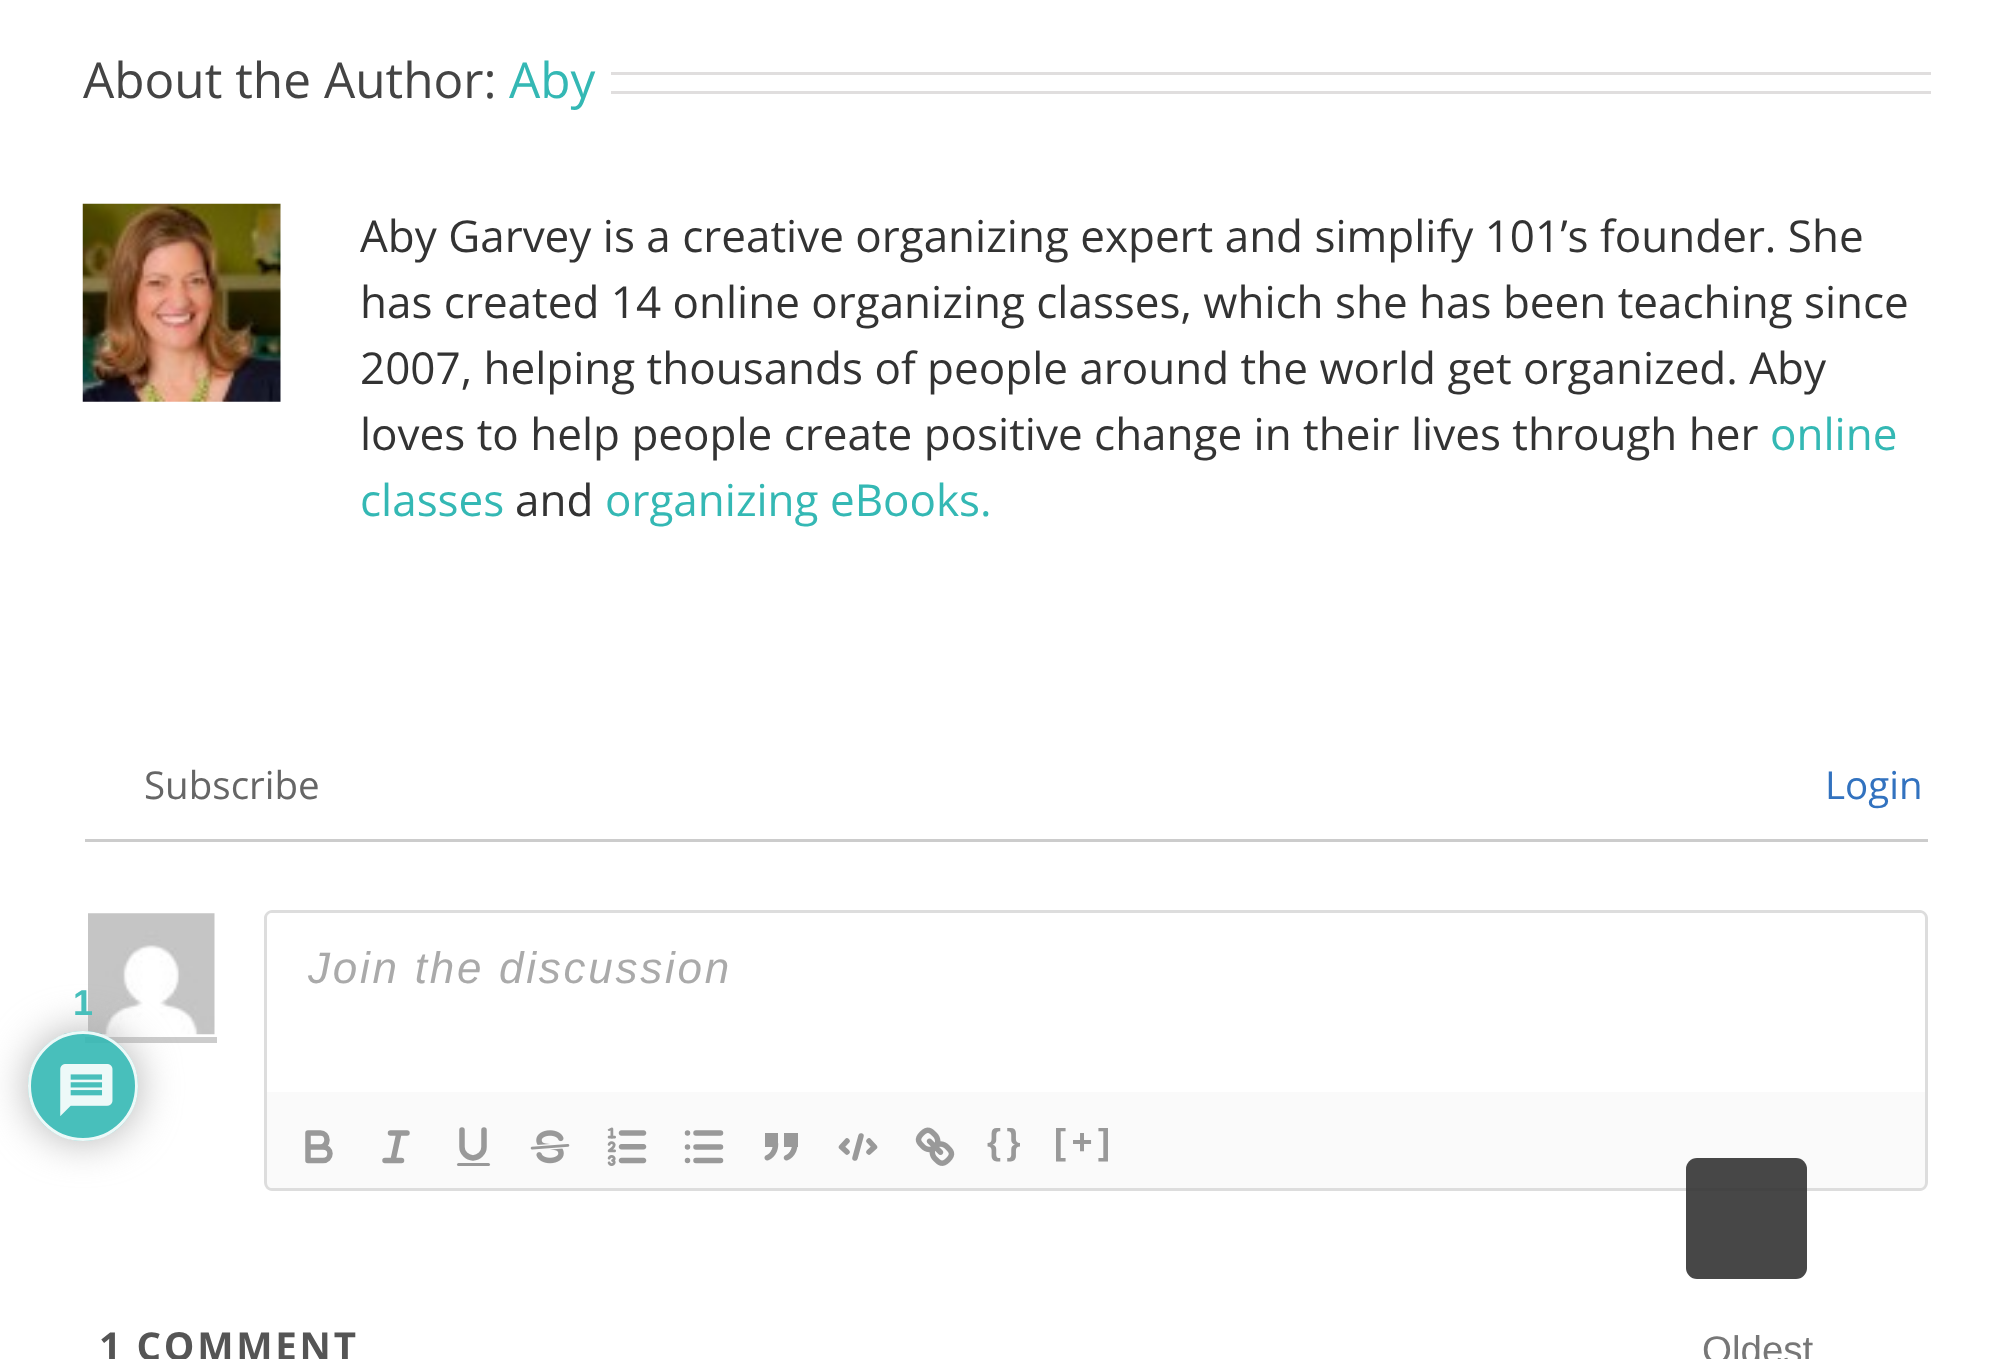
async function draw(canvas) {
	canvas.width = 2011;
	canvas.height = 1359;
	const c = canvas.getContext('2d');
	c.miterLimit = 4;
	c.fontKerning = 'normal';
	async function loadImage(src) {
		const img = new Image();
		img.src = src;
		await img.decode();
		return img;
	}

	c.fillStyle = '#fff';
	c.fillRect(0, 0, 2011, 1359);
	c.font = '49.5px Open Sans';
	c.fillStyle = '#444';
	c.fillText('About the Author:', 83, 98);
	c.fillStyle = '#34b8b4';
	c.fillText('Aby', 509, 98);
	c.fillStyle = '#e0dede';
	c.fillRect(611, 72, 1320, 3);
	c.fillRect(611, 91, 1320, 3);
	c.drawImage(await loadImage('img1.png'), 82, 203, 199, 199);
	c.font = '44px Open Sans';
	c.fillStyle = '#333';
	for (const [text, x, y] of [
		['Aby Garvey is a creative organizing expert and simplify 101’s founder. She', 360, 252],
		['has created 14 online organizing classes, which she has been teaching since', 360, 318],
		['2007, helping thousands of people around the world get organized. Aby', 360, 384],
		['loves to help people create positive change in their lives through her', 360, 450],
	]) {
		c.fillText(text, x, y);
	}
	c.fillStyle = '#34b8b4';
	c.fillText('online', 1770, 450);
	c.fillText('classes', 360, 516);
	c.fillStyle = '#333';
	c.fillText('and', 515, 516);
	c.fillStyle = '#34b8b4';
	c.fillText('organizing eBooks.', 605, 516);
	c.fillStyle = '#ccc';
	c.fillRect(85, 839, 1843, 3);
	c.font = '38.5px Open Sans';
	c.fillStyle = '#666';
	c.fillText('Subscribe', 144, 799);
	c.fillStyle = '#3272bf';
	c.fillText('Login', 1825, 799);
	c.drawImage(await loadImage('img2.png'), 88, 913, 127, 122);
	c.fillStyle = '#ccc';
	c.fillRect(85, 1037, 132, 6);
	c.fillStyle = '#ddd';
	c.beginPath();
	c.moveTo(272, 910);
	c.lineTo(1920, 910);
	c.bezierCurveTo(1924, 910, 1928, 914, 1928, 918);
	c.lineTo(1928, 1092);
	c.lineTo(264, 1092);
	c.lineTo(264, 918);
	c.bezierCurveTo(264, 914, 268, 910, 272, 910);
	c.closePath();
	c.moveTo(272, 913);
	c.lineTo(1920, 913);
	c.bezierCurveTo(1923, 913, 1925, 915, 1925, 918);
	c.lineTo(1925, 1092);
	c.lineTo(267, 1092);
	c.lineTo(267, 918);
	c.bezierCurveTo(267, 915, 269, 913, 272, 913);
	c.closePath();
	c.fill('evenodd');
	c.letterSpacing = '2.75px';
	c.font = 'italic 44px Liberation Sans';
	c.fillStyle = '#aaa';
	c.fillText('Join the discussion', 308, 983);
	c.fillStyle = '#fafafa';
	c.beginPath();
	c.roundRect(264, 1092, 1664, 99, [0, 0, 8, 8]);
	c.fill();
	c.fillStyle = '#ddd';
	c.beginPath();
	c.moveTo(264, 1092);
	c.lineTo(1928, 1092);
	c.lineTo(1928, 1182);
	c.bezierCurveTo(1928, 1187, 1924, 1191, 1920, 1191);
	c.lineTo(272, 1191);
	c.bezierCurveTo(268, 1191, 264, 1187, 264, 1182);
	c.closePath();
	c.moveTo(267, 1092);
	c.lineTo(1925, 1092);
	c.lineTo(1925, 1182);
	c.bezierCurveTo(1925, 1186, 1923, 1188, 1920, 1188);
	c.lineTo(272, 1188);
	c.bezierCurveTo(269, 1188, 267, 1186, 267, 1182);
	c.closePath();
	c.fill('evenodd');
	c.beginPath();
	c.moveTo(308, 1133);
	c.lineTo(320.5, 1133);
	c.bezierCurveTo(324, 1133, 327, 1136, 327, 1140);
	c.bezierCurveTo(327, 1143.5, 324, 1147, 320.5, 1147);
	c.lineTo(308, 1147);
	c.closePath();
	c.moveTo(308, 1147);
	c.lineTo(323, 1147);
	c.bezierCurveTo(327, 1147, 330, 1150, 330, 1153.5);
	c.bezierCurveTo(330, 1157.5, 327, 1160.5, 323, 1160.5);
	c.lineTo(308, 1160.5);
	c.closePath();
	c.strokeStyle = '#999';
	c.lineWidth = 5.5;
	c.lineCap = 'round';
	c.lineJoin = 'round';
	c.stroke();
	c.beginPath();
	c.moveTo(390.5, 1133);
	c.lineTo(407, 1133);
	c.moveTo(385, 1160.5);
	c.lineTo(401.5, 1160.5);
	c.moveTo(393, 1160.5);
	c.lineTo(399, 1133);
	c.stroke();
	c.beginPath();
	c.moveTo(462, 1130);
	c.lineTo(462, 1147);
	c.bezierCurveTo(462, 1153, 467, 1157.5, 473, 1158);
	c.bezierCurveTo(479, 1157.5, 484, 1153, 484, 1147);
	c.lineTo(484, 1130);
	c.stroke();
	c.fillStyle = '#999';
	c.beginPath();
	c.roundRect(457, 1163, 33, 3, 1.5);
	c.fill();
	c.drawImage(await loadImage('img3.png'), 530, 1130, 40, 34);
	c.drawImage(await loadImage('img4.png'), 607, 1127, 40, 39);
	c.beginPath();
	c.moveTo(696, 1133);
	c.lineTo(720.5, 1133);
	c.moveTo(696, 1147);
	c.lineTo(720.5, 1147);
	c.moveTo(696, 1160.5);
	c.lineTo(720.5, 1160.5);
	c.moveTo(687.5, 1133);
	c.lineTo(687.5, 1133);
	c.moveTo(687.5, 1147);
	c.lineTo(687.5, 1147);
	c.moveTo(687.5, 1160.5);
	c.lineTo(687.5, 1160.5);
	c.stroke();
	c.drawImage(await loadImage('img5.png'), 764, 1133, 34, 28);
	c.beginPath();
	c.moveTo(847, 1141);
	c.lineTo(841.5, 1147);
	c.lineTo(847, 1152);
	c.moveTo(869, 1141);
	c.lineTo(874.5, 1147);
	c.lineTo(869, 1152);
	c.moveTo(861, 1136);
	c.lineTo(855, 1158);
	c.stroke();
	c.drawImage(await loadImage('img6.png'), 915, 1127, 40, 39);
	c.letterSpacing = '5.5px';
	c.font = 'bold 36px Liberation Sans';
	c.fillText('{}', 987, 1154);
	c.fillText('[+]', 1054, 1154);
	c.letterSpacing = '2.75px';
	c.font = 'bold 38.5px Open Sans';
	c.fillStyle = '#555';
	c.fillText('1 COMMENT', 99, 1360);
	c.letterSpacing = '0px';
	c.font = '38.5px Liberation Sans';
	c.fillStyle = '#777';
	c.fillText('Oldest', 1702, 1363);
	c.save();
	c.beginPath();
	c.moveTo(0, 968);
	c.lineTo(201, 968);
	c.lineTo(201, 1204);
	c.lineTo(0, 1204);
	c.closePath();
	c.moveTo(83, 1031);
	c.bezierCurveTo(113.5, 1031, 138, 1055.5, 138, 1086);
	c.bezierCurveTo(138, 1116.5, 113.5, 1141, 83, 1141);
	c.bezierCurveTo(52.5, 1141, 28, 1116.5, 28, 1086);
	c.bezierCurveTo(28, 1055.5, 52.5, 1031, 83, 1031);
	c.closePath();
	c.clip('evenodd');
	c.fillStyle = '#aaaaaae6';
	c.filter = 'blur(20.5px)';
	c.beginPath();
	c.roundRect(28, 1031, 110, 110, 55);
	c.fill();
	c.filter = 'none';
	c.restore();
	c.fillStyle = '#34b8b4e6';
	c.beginPath();
	c.arc(83, 1086, 55, 0, 2 * Math.PI);
	c.fill();
	c.beginPath();
	c.arc(83, 1086, 53.5, 0, 2 * Math.PI);
	c.strokeStyle = '#ffffffe6';
	c.lineWidth = 3;
	c.stroke();
	c.drawImage(await loadImage('img7.png'), 60, 1064, 53, 52);
	c.font = 'bold 36px Liberation Sans';
	c.fillStyle = '#48bfbb';
	c.fillText('1', 73, 1015);
	c.fillStyle = '#333333e6';
	c.beginPath();
	c.roundRect(1686, 1158, 121, 121, 11);
	c.fill();
}

draw(document.querySelector('canvas'));
